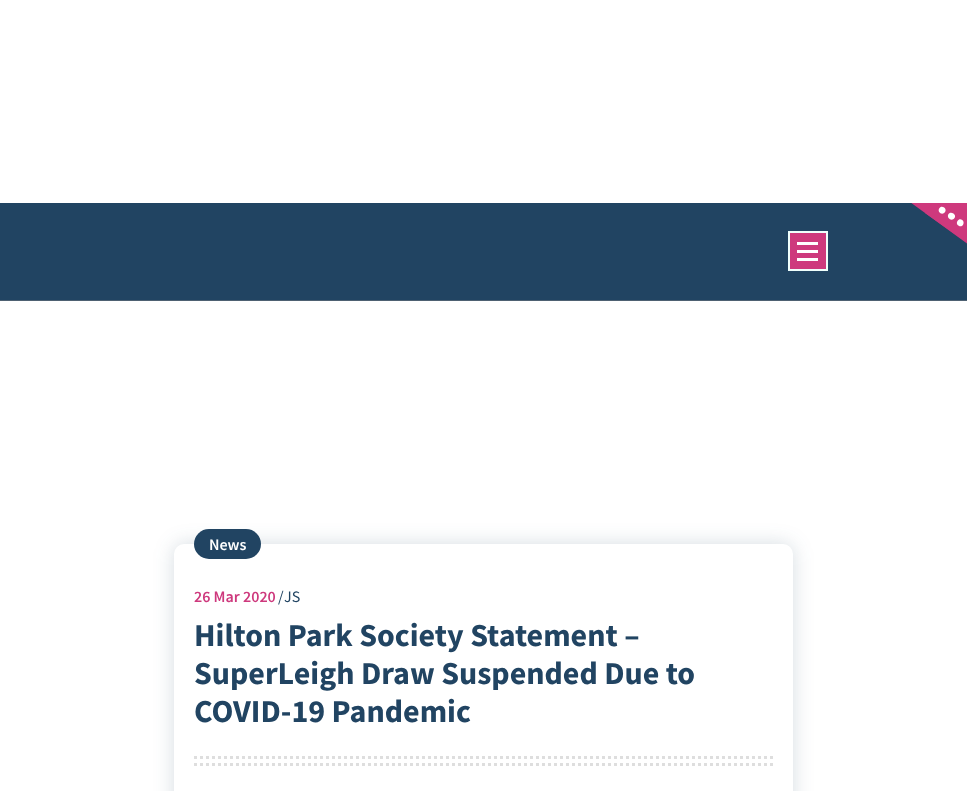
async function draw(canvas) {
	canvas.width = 967;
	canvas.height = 791;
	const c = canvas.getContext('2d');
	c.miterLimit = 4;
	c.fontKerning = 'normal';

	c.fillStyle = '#fff';
	c.fillRect(0, 0, 967, 791);
	c.fillStyle = '#214462';
	c.fillRect(0, 203, 967, 97);
	c.fillStyle = '#4e6172';
	c.fillRect(0, 300, 967, 1);
	c.save();
	c.beginPath();
	c.rect(895, 203, 72, 52);
	c.clip();
	c.fillStyle = '#ce397d';
	c.beginPath();
	c.moveTo(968, 84);
	c.lineTo(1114, 190);
	c.lineTo(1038, 295);
	c.lineTo(892, 189);
	c.closePath();
	c.fill();
	c.beginPath();
	c.moveTo(925, 213);
	c.lineTo(940, 192);
	c.lineTo(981, 220);
	c.lineTo(966, 242);
	c.closePath();
	c.fill();
	c.restore();
	c.fillStyle = '#fff';
	c.beginPath();
	c.moveTo(948.5, 214);
	c.bezierCurveTo(951, 210.5, 957, 214.5, 954.5, 218);
	c.bezierCurveTo(952, 222, 946, 218, 948.5, 214);
	c.closePath();
	c.moveTo(939.5, 208);
	c.bezierCurveTo(942, 204.5, 947.5, 208.5, 945, 212);
	c.bezierCurveTo(942.5, 216, 936.5, 212, 939.5, 208);
	c.closePath();
	c.moveTo(957.5, 221);
	c.bezierCurveTo(960, 217, 965.5, 221, 963, 225);
	c.bezierCurveTo(960.5, 228.5, 955, 224.5, 957.5, 221);
	c.closePath();
	c.fill();
	c.fillStyle = '#ce397d';
	c.beginPath();
	c.rect(789, 232, 38, 38);
	c.fill();
	c.strokeStyle = '#effffc';
	c.lineWidth = 2;
	c.stroke();
	for (const [x, y, w, h, color] of [
		[797, 242, 21, 3, '#fff'],
		[797, 250, 21, 3, '#fff'],
		[797, 258, 21, 3, '#fff'],
	]) {
		c.fillStyle = color;
		c.fillRect(x, y, w, h);
	}
	c.fillStyle = '#21446230';
	c.filter = 'blur(10px)';
	c.beginPath();
	c.roundRect(174, 544, 619, 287, 10);
	c.fill();
	c.filter = 'none';
	c.fillStyle = '#fff';
	c.beginPath();
	c.roundRect(174, 544, 619, 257, 10);
	c.fill();
	c.fillStyle = '#214462';
	c.beginPath();
	c.roundRect(194, 529, 67, 30, 15);
	c.fill();
	c.font = '600 16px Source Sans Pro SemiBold';
	c.fillStyle = '#fff';
	c.fillText('News', 209, 550);
	c.fillStyle = '#ce397d';
	c.fillText('26 Mar 2020', 194, 602);
	c.font = '16px Source Sans Pro';
	c.fillStyle = '#214462';
	c.fillText('/', 278, 602);
	c.fillText('JS', 284, 602);
	c.beginPath();
	c.moveTo(194, 757.5);
	c.lineTo(773, 757.5);
	c.strokeStyle = '#dedede';
	c.lineWidth = 3;
	c.setLineDash([3, 3]);
	c.stroke();
	c.font = 'bold 32px Source Sans Pro';
	for (const [text, x, y] of [
		['Hilton Park Society Statement –', 194, 646],
		['SuperLeigh Draw Suspended Due to', 194, 684],
		['COVID-19 Pandemic', 194, 722],
	]) {
		c.fillText(text, x, y);
	}
	c.beginPath();
	c.moveTo(194, 764.5);
	c.lineTo(773, 764.5);
	c.stroke();
}

draw(document.querySelector('canvas'));
